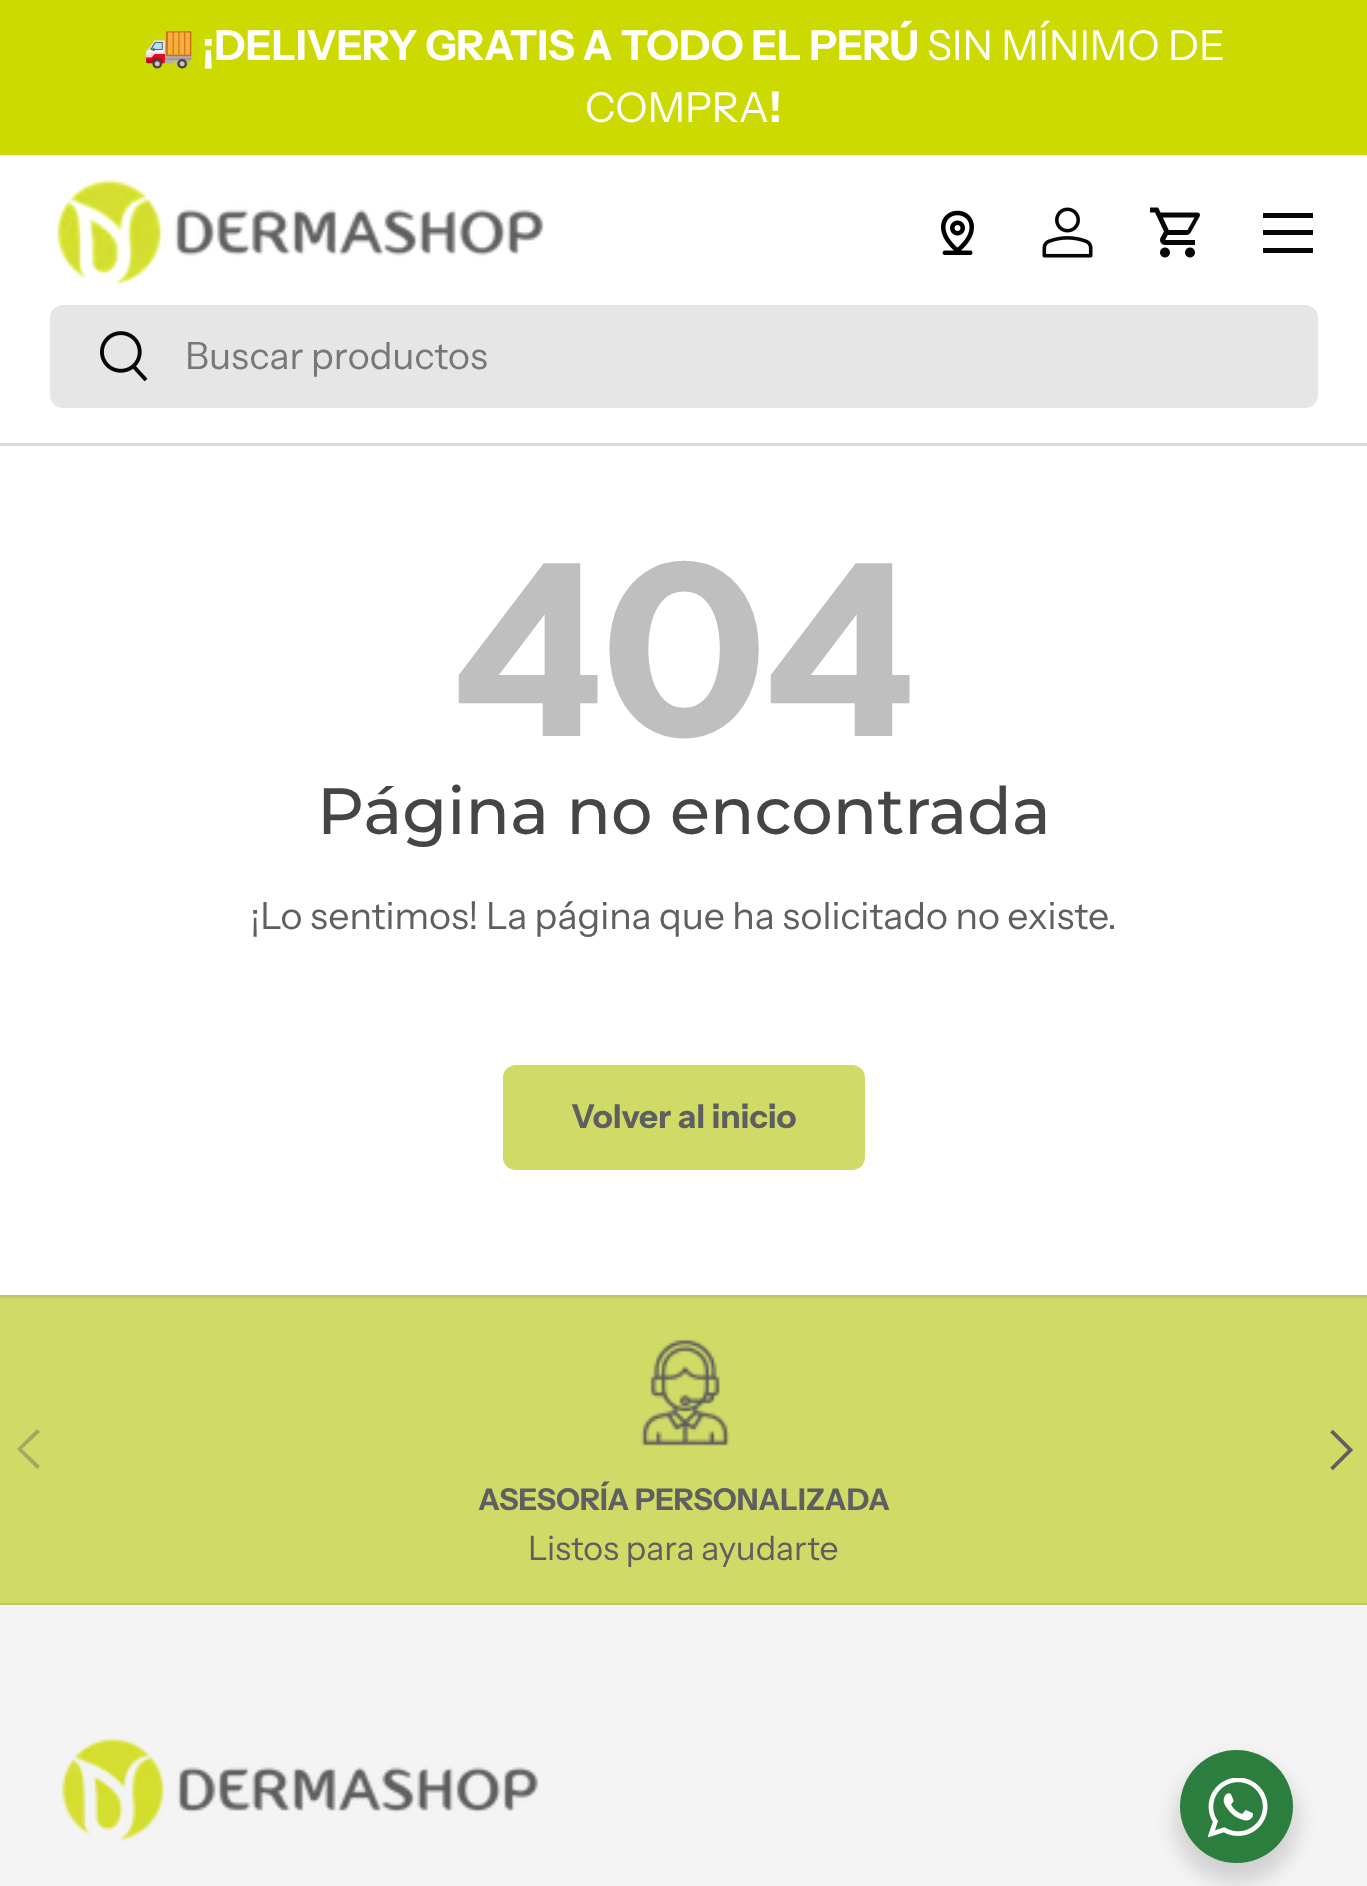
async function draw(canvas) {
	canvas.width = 1367;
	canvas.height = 1886;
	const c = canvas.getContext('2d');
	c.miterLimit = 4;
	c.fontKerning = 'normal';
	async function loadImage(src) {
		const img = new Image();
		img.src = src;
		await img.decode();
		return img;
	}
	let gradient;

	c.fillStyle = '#fff';
	c.fillRect(0, 0, 1367, 1886);
	c.fillStyle = '#ccda01';
	c.fillRect(0, 0, 1367, 155);
	c.font = '41.25px Noto Color Emoji';
	c.fillStyle = '#fff';
	c.fillText('🚚', 143, 60);
	c.font = 'bold 41.25px Instrument Sans';
	c.fillText('¡DELIVERY GRATIS A TODO EL PERÚ', 202, 60);
	c.font = '41.25px Instrument Sans';
	c.fillText('SIN MÍNIMO DE', 927, 60);
	c.fillText('COMPRA', 585, 122);
	c.font = 'bold 41.25px Instrument Sans';
	c.fillText('!', 769, 122);
	c.fillStyle = '#dadada';
	c.fillRect(0, 443, 1367, 3);
	c.drawImage(await loadImage('img1.png'), 56, 179, 488, 107);
	c.drawImage(await loadImage('img2.png'), 941, 210, 33, 45);
	c.drawImage(await loadImage('img3.png'), 1042, 207, 51, 51);
	c.drawImage(await loadImage('img4.png'), 1150, 207, 50, 51);
	for (const [x, y, w, h, color] of [
		[1263, 213, 50, 5, '#070707'],
		[1263, 248, 50, 5, '#070707'],
		[1263, 230, 50, 5, '#070707'],
	]) {
		c.fillStyle = color;
		c.fillRect(x, y, w, h);
	}
	c.fillStyle = '#e6e6e6';
	c.beginPath();
	c.roundRect(50, 305, 1268, 103, 13);
	c.fill();
	c.drawImage(await loadImage('img5.png'), 100, 331, 48, 51);
	c.font = '37.5px Instrument Sans';
	c.fillStyle = '#777';
	c.fillText('Buscar productos', 185, 369);
	c.font = 'bold 240px Instrument Sans';
	c.fillStyle = '#bfbfbf';
	c.fillText('404', 453, 736);
	c.font = '500 65.3px Montserrat';
	c.fillStyle = '#454545';
	c.fillText('Página no encontrada', 317, 834);
	c.font = '37.5px Instrument Sans';
	c.fillStyle = '#5f5e60';
	c.fillText('¡Lo sentimos! La página que ha solicitado no existe.', 250, 929);
	c.save();
	c.beginPath();
	c.roundRect(503, 1065, 362, 105, 13);
	c.clip();
	gradient = c.createLinearGradient(-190, 989, 843, 1246);
	gradient.addColorStop(0.6, '#c4cb71');
	gradient.addColorStop(0.6, '#d0da67');
	gradient.addColorStop(1, '#d0da67');
	c.fillStyle = gradient;
	c.fillRect(503, 1068, 360, 100);
	c.restore();
	c.beginPath();
	c.roundRect(504.5, 1066.5, 359, 102, 11.5);
	c.strokeStyle = '#d0da67';
	c.lineWidth = 3;
	c.stroke();
	c.font = 'bold 33px Instrument Sans';
	c.fillText('Volver al inicio', 571, 1128);
	for (const [x, y, w, h, color] of [
		[0, 1298, 1367, 305, '#d0da67'],
		[0, 1603, 1367, 2, '#bfc766'],
		[0, 1295, 1367, 3, '#bfc766'],
	]) {
		c.fillStyle = color;
		c.fillRect(x, y, w, h);
	}
	c.fillStyle = '#a3a864';
	c.beginPath();
	c.moveTo(17, 1449);
	c.lineTo(37, 1429);
	c.lineTo(40, 1432);
	c.lineTo(22, 1449);
	c.lineTo(40, 1466);
	c.lineTo(37, 1469);
	c.closePath();
	c.fill();
	c.beginPath();
	c.moveTo(1331.5, 1431);
	c.lineTo(1350.5, 1450);
	c.lineTo(1331.5, 1469);
	c.strokeStyle = '#5f5e60';
	c.lineWidth = 3.8;
	c.stroke();
	c.drawImage(await loadImage('img6.png'), 640, 1339, 90, 107);
	c.font = 'bold 30px Instrument Sans';
	c.fillStyle = '#5f5e60';
	c.fillText('ASESORÍA PERSONALIZADA', 478, 1510);
	c.font = '33.75px Instrument Sans';
	c.fillText('Listos para ayudarte', 528, 1560);
	c.fillStyle = '#f4f4f4';
	c.fillRect(0, 1605, 1367, 281);
	c.drawImage(await loadImage('img7.png'), 61, 1737, 478, 104);
	c.fillStyle = '#00000024';
	c.filter = 'blur(10px)';
	c.beginPath();
	c.roundRect(1175, 1760, 123, 123, 61.5);
	c.fill();
	c.filter = 'none';
	c.fillStyle = '#2c7e3f';
	c.beginPath();
	c.arc(1236.5, 1806.5, 56.5, 0, 2 * Math.PI);
	c.fill();
	c.drawImage(await loadImage('img8.png'), 1208, 1778, 60, 60);
}

draw(document.querySelector('canvas'));
